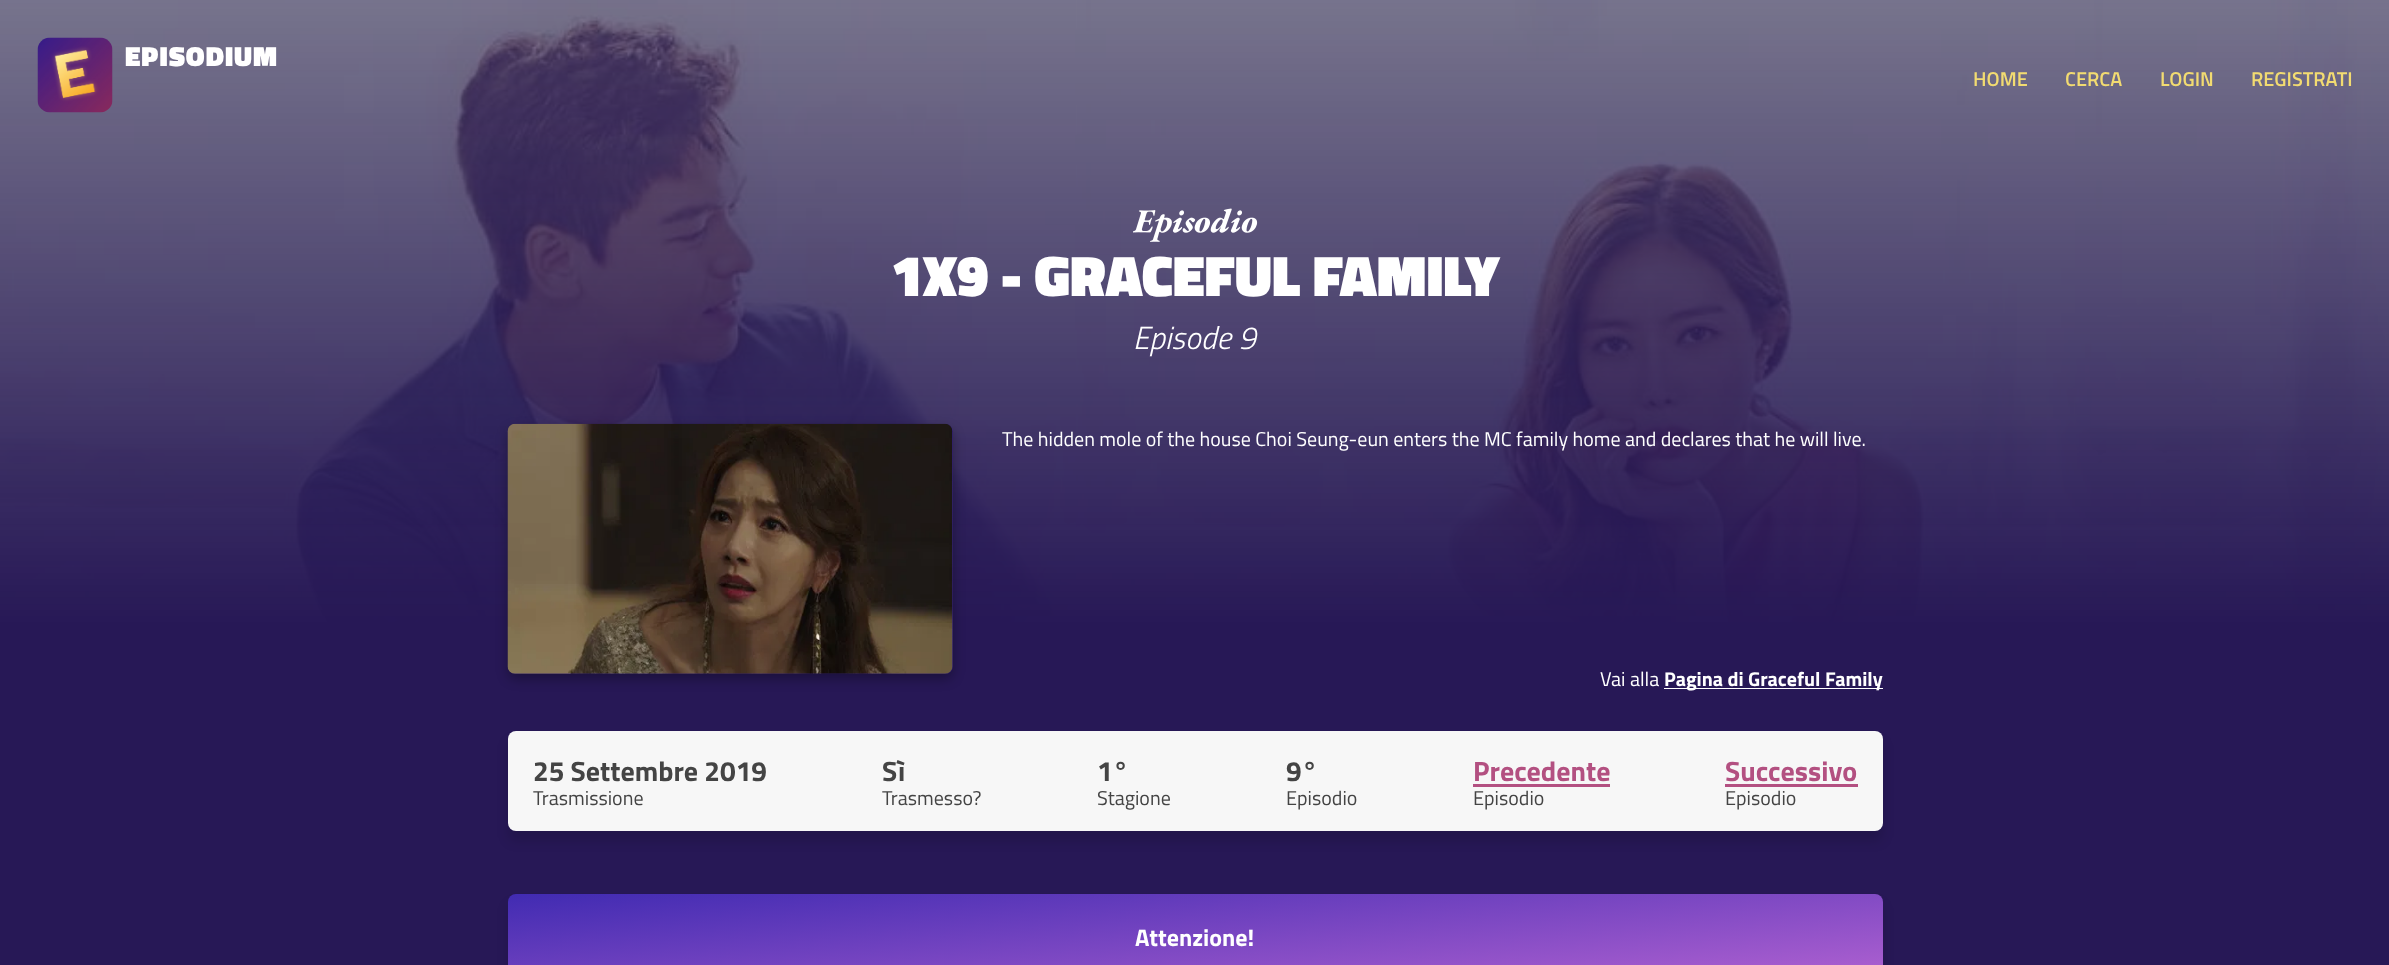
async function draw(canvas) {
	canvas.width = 2389;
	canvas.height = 965;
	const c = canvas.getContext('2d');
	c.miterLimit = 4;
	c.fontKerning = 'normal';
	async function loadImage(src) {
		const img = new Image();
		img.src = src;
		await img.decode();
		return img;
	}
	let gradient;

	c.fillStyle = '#271856';
	c.fillRect(0, 0, 2389, 965);
	c.drawImage(await loadImage('img2.png'), 0, 0, 2389, 625);
	c.drawImage(await loadImage('img1.png'), 37, 37, 76, 76);
	c.letterSpacing = '1px';
	c.font = '900 28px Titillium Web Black';
	c.fillStyle = '#fff';
	c.fillText('EPISODIUM', 125, 66);
	c.letterSpacing = '0px';
	c.font = '600 20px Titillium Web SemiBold';
	c.fillStyle = '#f2db71';
	for (const [text, x, y] of [
		['HOME', 1973, 86],
		['CERCA', 2065, 86],
		['LOGIN', 2160, 86],
		['REGISTRATI', 2251, 86],
	]) {
		c.fillText(text, x, y);
	}
	c.drawImage(await loadImage('img3.png'), 1133, 208, 125, 34);
	c.font = '900 58px Titillium Web Black';
	c.fillStyle = '#fff';
	c.fillText('1X9 - GRACEFUL FAMILY', 891, 296);
	c.font = 'italic 300 32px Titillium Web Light';
	c.fillText('Episode 9', 1133, 349);
	c.fillStyle = '#0000004d';
	c.filter = 'blur(6px)';
	c.beginPath();
	c.roundRect(508, 429, 445, 250, 8);
	c.fill();
	c.filter = 'none';
	gradient = c.createLinearGradient(730, 424, 730, 674);
	gradient.addColorStop(0, '#392585');
	gradient.addColorStop(1, '#301f6c');
	c.fillStyle = gradient;
	c.beginPath();
	c.roundRect(508, 424, 445, 250, 8);
	c.fill();
	c.drawImage(await loadImage('img4.png'), 507, 423, 446, 251);
	c.font = '20px Titillium Web';
	c.fillStyle = '#fff';
	c.fillText('The hidden mole of the house Choi Seung-eun enters the MC family home and declares that he will live.', 1002, 446);
	c.fillText('Vai alla', 1600, 686);
	c.fillRect(1664, 688, 219, 1);
	c.font = 'bold 20px Titillium Web';
	c.fillText('Pagina di Graceful Family', 1664, 686);
	c.fillStyle = '#00000021';
	c.filter = 'blur(6px)';
	c.beginPath();
	c.roundRect(508, 741, 1375, 100, 8);
	c.fill();
	c.filter = 'none';
	c.fillStyle = '#f7f7f7';
	c.beginPath();
	c.roundRect(508, 731, 1375, 100, 8);
	c.fill();
	c.font = 'bold 28px Titillium Web';
	c.fillStyle = '#444';
	c.fillText('25 Settembre 2019', 533, 781);
	c.font = '20px Titillium Web';
	c.fillText('Trasmissione', 533, 805);
	c.font = 'bold 28px Titillium Web';
	c.fillText('Sì', 882, 781);
	c.font = '20px Titillium Web';
	c.fillText('Trasmesso?', 882, 805);
	c.font = 'bold 28px Titillium Web';
	c.fillText('1°', 1097, 781);
	c.font = '20px Titillium Web';
	c.fillText('Stagione', 1097, 805);
	c.font = 'bold 28px Titillium Web';
	c.fillText('9°', 1286, 781);
	c.font = '20px Titillium Web';
	c.fillText('Episodio', 1286, 805);
	c.font = 'bold 28px Titillium Web';
	c.fillStyle = '#b35081';
	c.fillText('Precedente', 1473, 781);
	c.fillRect(1473, 784, 137, 3);
	c.font = '20px Titillium Web';
	c.fillStyle = '#444';
	c.fillText('Episodio', 1473, 805);
	c.font = 'bold 28px Titillium Web';
	c.fillStyle = '#b35081';
	c.fillText('Successivo', 1725, 781);
	c.fillRect(1725, 784, 133, 3);
	c.font = '20px Titillium Web';
	c.fillStyle = '#444';
	c.fillText('Episodio', 1725, 805);
	c.fillStyle = '#00000021';
	c.filter = 'blur(6px)';
	c.beginPath();
	c.roundRect(508, 904, 1375, 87, 8);
	c.fill();
	c.filter = 'none';
	gradient = c.createLinearGradient(1184, 833, 1206, 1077);
	gradient.addColorStop(0, '#412bb2');
	gradient.addColorStop(1, '#c26ad6');
	c.fillStyle = gradient;
	c.beginPath();
	c.roundRect(508, 894, 1375, 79, 8);
	c.fill();
	c.font = 'bold 24px Titillium Web';
	c.fillStyle = '#fff';
	c.fillText('Attenzione!', 1135, 946);
}

draw(document.querySelector('canvas'));
